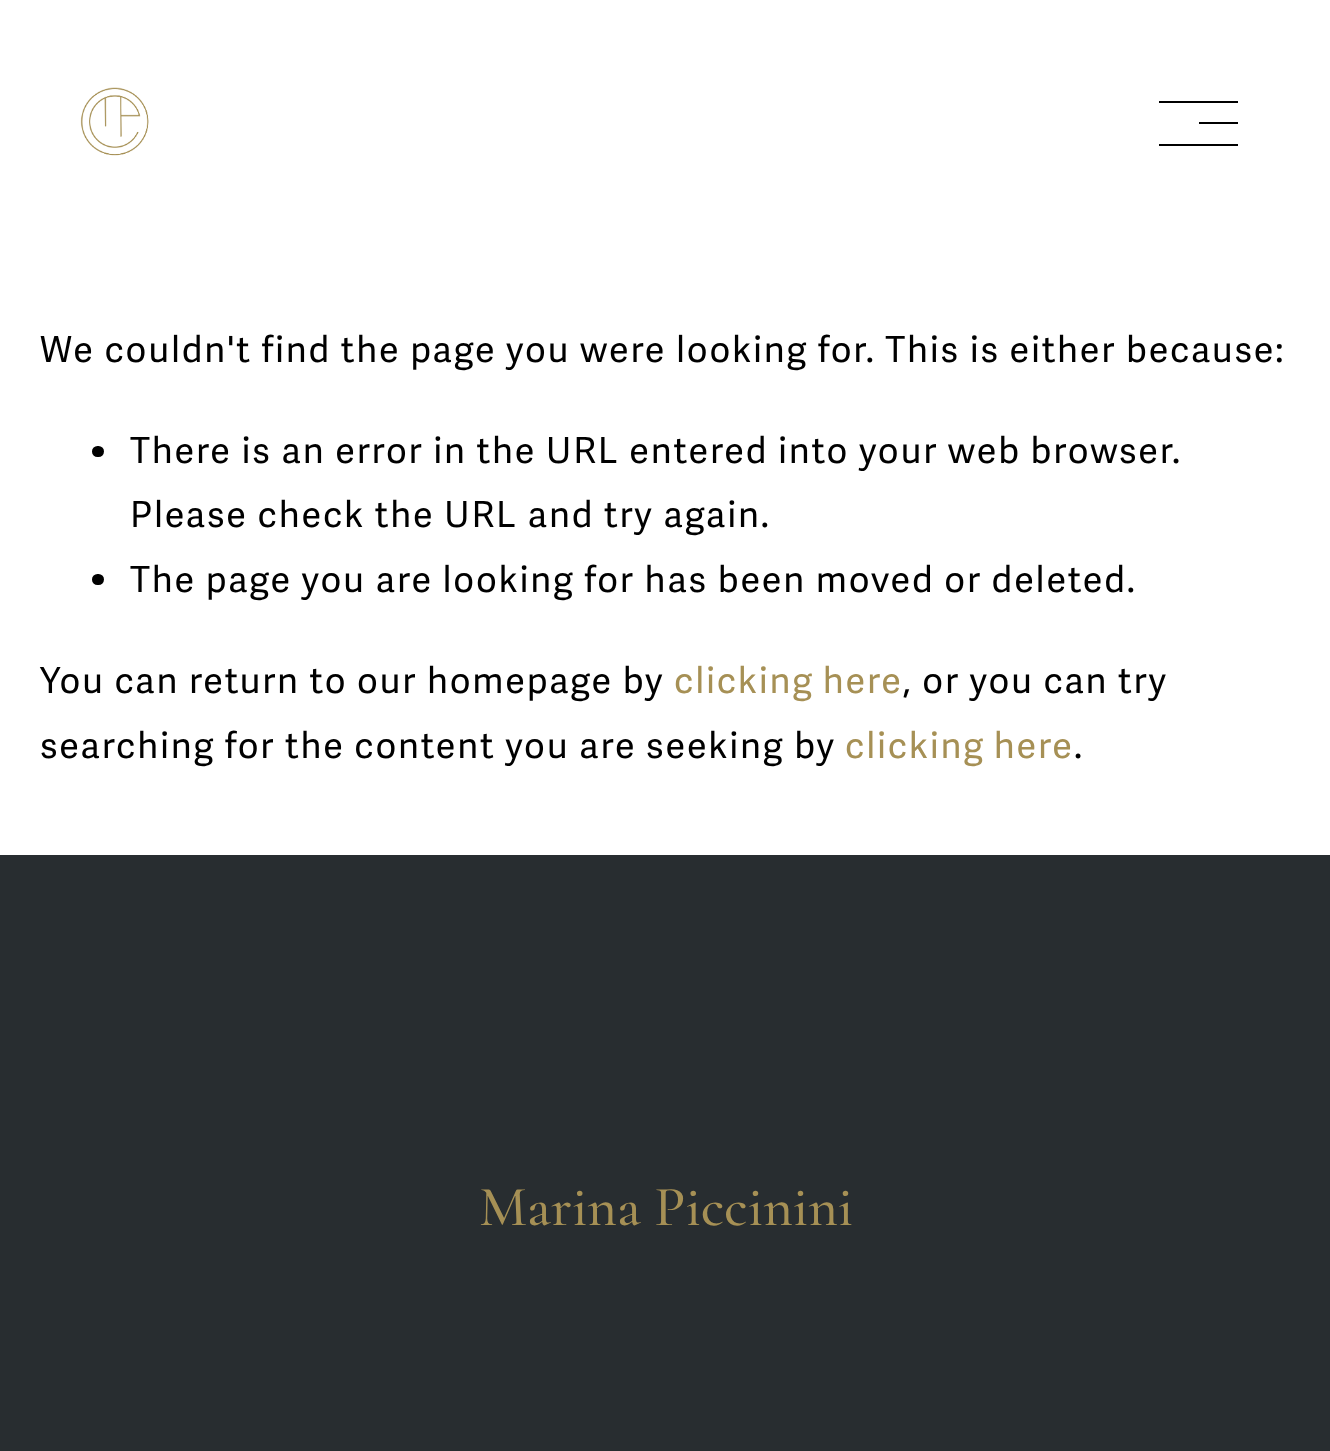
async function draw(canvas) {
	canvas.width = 1330;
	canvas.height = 1451;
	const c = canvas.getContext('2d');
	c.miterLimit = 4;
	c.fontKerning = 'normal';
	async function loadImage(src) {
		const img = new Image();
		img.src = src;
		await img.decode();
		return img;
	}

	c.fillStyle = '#fff';
	c.fillRect(0, 0, 1330, 1451);
	c.drawImage(await loadImage('img1.png'), 80, 87, 69, 69);
	for (const [x, y, w, h, color] of [
		[1159, 101, 79, 2, '#000'],
		[1199, 122, 39, 2, '#000'],
		[1159, 144, 79, 2, '#000'],
	]) {
		c.fillStyle = color;
		c.fillRect(x, y, w, h);
	}
	c.letterSpacing = '1.8px';
	c.font = '36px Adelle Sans';
	c.fillText('We couldn\'t find the page you were looking for. This is either because:', 40, 362);
	c.beginPath();
	c.roundRect(92, 446, 12, 11, 5.5);
	c.fill();
	c.fillText('There is an error in the URL entered into your web browser.', 130, 463);
	c.fillText('Please check the URL and try again.', 130, 527);
	c.beginPath();
	c.roundRect(92, 574, 12, 11, 5.5);
	c.fill();
	c.fillText('The page you are looking for has been moved or deleted.', 130, 592);
	c.fillText('You can return to our homepage by', 40, 693);
	c.wordSpacing = '-1px';
	c.fillStyle = '#a69055';
	c.fillText('clicking here', 674, 693);
	c.wordSpacing = '0px';
	c.fillStyle = '#000';
	c.fillText(', or you can try', 903, 693);
	c.fillText('searching for the content you are seeking by', 40, 758);
	c.wordSpacing = '-1px';
	c.fillStyle = '#a69055';
	c.fillText('clicking here', 845, 758);
	c.wordSpacing = '0px';
	c.fillStyle = '#000';
	c.fillText('.', 1074, 758);
	c.fillStyle = '#282d30';
	c.fillRect(0, 855, 1330, 596);
	c.letterSpacing = '0px';
	c.font = '500 57px Cormorant Garamond';
	c.fillStyle = '#a69055';
	c.fillText('Marina Piccinini', 479, 1225);
}

draw(document.querySelector('canvas'));
